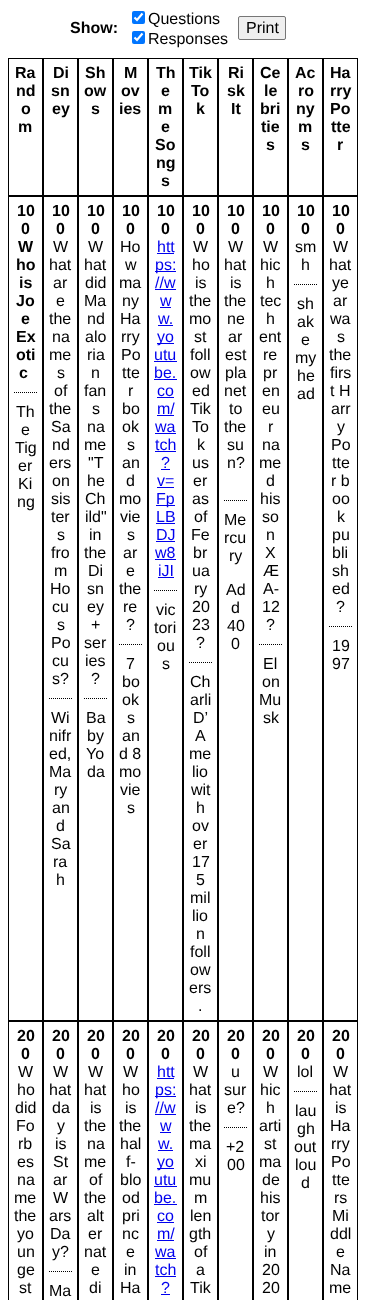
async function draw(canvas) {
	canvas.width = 366;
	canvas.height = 1300;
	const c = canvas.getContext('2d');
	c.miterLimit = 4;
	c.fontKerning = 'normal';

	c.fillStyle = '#fff';
	c.fillRect(0, 0, 366, 1300);
	c.font = 'bold 16px Liberation Sans';
	c.fillStyle = '#000';
	c.fillText('Show:', 70, 33);
	c.fillStyle = '#0075ff';
	c.beginPath();
	c.roundRect(132, 11, 13, 13, 2);
	c.fill();
	c.beginPath();
	c.moveTo(134.5, 17.5);
	c.lineTo(137, 20);
	c.lineTo(142.5, 13.5);
	c.strokeStyle = '#fff';
	c.lineWidth = 2.1;
	c.stroke();
	c.font = '16px Liberation Sans';
	c.fillStyle = '#000';
	c.fillText('Questions', 148, 24);
	c.fillStyle = '#0075ff';
	c.beginPath();
	c.roundRect(132, 31, 13, 13, 2);
	c.fill();
	c.beginPath();
	c.moveTo(134.5, 37.5);
	c.lineTo(137, 40);
	c.lineTo(142.5, 33.5);
	c.stroke();
	c.fillStyle = '#000';
	c.fillText('Responses', 148, 44);
	c.fillStyle = '#efefef';
	c.beginPath();
	c.roundRect(238.5, 16.5, 47, 23, 1.5);
	c.fill();
	c.strokeStyle = '#767676';
	c.lineWidth = 1;
	c.stroke();
	c.fillStyle = '#000';
	c.fillText('Print', 246, 33);
	c.strokeStyle = '#000';
	c.strokeRect(8.5, 58.5, 34, 137);
	c.font = 'bold 16px Liberation Sans';
	for (const [text, x, y] of [
		['Ra', 15, 78],
		['nd', 16, 96],
		['o', 21, 114],
		['m', 18, 132],
	]) {
		c.fillText(text, x, y);
	}
	c.strokeRect(43.5, 58.5, 34, 137);
	for (const [text, x, y] of [
		['Di', 53, 78],
		['sn', 51, 96],
		['ey', 52, 114],
	]) {
		c.fillText(text, x, y);
	}
	c.strokeRect(78.5, 58.5, 34, 137);
	for (const [text, x, y] of [
		['Sh', 85, 78],
		['ow', 84, 96],
		['s', 91, 114],
	]) {
		c.fillText(text, x, y);
	}
	c.strokeRect(113.5, 58.5, 34, 137);
	for (const [text, x, y] of [
		['M', 124, 78],
		['ov', 121, 96],
		['ies', 119, 114],
	]) {
		c.fillText(text, x, y);
	}
	c.strokeRect(148.5, 58.5, 34, 137);
	for (const [text, x, y] of [
		['Th', 156, 78],
		['e', 161, 96],
		['m', 158, 114],
		['e', 161, 132],
		['So', 155, 150],
		['ng', 156, 168],
		['s', 161, 186],
	]) {
		c.fillText(text, x, y);
	}
	c.strokeRect(183.5, 58.5, 34, 137);
	for (const [text, x, y] of [
		['Tik', 189, 78],
		['To', 191, 96],
		['k', 196, 114],
	]) {
		c.fillText(text, x, y);
	}
	c.strokeRect(218.5, 58.5, 34, 137);
	for (const [text, x, y] of [
		['Ri', 228, 78],
		['sk', 227, 96],
		['It', 231, 114],
	]) {
		c.fillText(text, x, y);
	}
	c.strokeRect(253.5, 58.5, 34, 137);
	for (const [text, x, y] of [
		['Ce', 260, 78],
		['le', 264, 96],
		['bri', 260, 114],
		['tie', 261, 132],
		['s', 266, 150],
	]) {
		c.fillText(text, x, y);
	}
	c.strokeRect(288.5, 58.5, 34, 137);
	for (const [text, x, y] of [
		['Ac', 295, 78],
		['ro', 298, 96],
		['ny', 296, 114],
		['m', 298, 132],
		['s', 301, 150],
	]) {
		c.fillText(text, x, y);
	}
	c.strokeRect(323.5, 58.5, 34, 137);
	for (const [text, x, y] of [
		['Ha', 330, 78],
		['rry', 330, 96],
		['Po', 330, 114],
		['tte', 331, 132],
		['r', 337, 150],
	]) {
		c.fillText(text, x, y);
	}
	c.strokeRect(8.5, 196.5, 34, 824);
	for (const [text, x, y] of [
		['10', 17, 216],
		['0', 21, 234],
		['W', 18, 252],
		['ho', 16, 270],
		['is', 19, 288],
		['Jo', 16, 306],
		['e', 21, 324],
		['Ex', 16, 342],
		['oti', 16, 360],
		['c', 19, 378],
	]) {
		c.fillText(text, x, y);
	}
	c.beginPath();
	c.moveTo(14, 392.5);
	c.lineTo(37, 392.5);
	c.setLineDash([1, 1]);
	c.stroke();
	c.font = '16px Liberation Sans';
	for (const [text, x, y] of [
		['Th', 16, 417],
		['e', 21, 435],
		['Tig', 15, 453],
		['er', 18, 471],
		['Ki', 18, 489],
		['ng', 17, 507],
	]) {
		c.fillText(text, x, y);
	}
	c.setLineDash([]);
	c.strokeRect(43.5, 196.5, 34, 824);
	c.font = 'bold 16px Liberation Sans';
	c.fillText('10', 52, 216);
	c.fillText('0', 56, 234);
	c.font = '16px Liberation Sans';
	for (const [text, x, y] of [
		['W', 53, 252],
		['hat', 49, 270],
		['ar', 53, 288],
		['e', 56, 306],
		['the', 49, 324],
		['na', 52, 342],
		['me', 49, 360],
		['s', 57, 378],
		['of', 54, 396],
		['the', 49, 414],
		['Sa', 51, 432],
		['nd', 52, 450],
		['ers', 49, 468],
		['on', 52, 486],
		['sis', 51, 504],
		['ter', 51, 522],
		['s', 57, 540],
		['fro', 51, 558],
		['m', 54, 576],
		['Ho', 50, 594],
		['cu', 52, 612],
		['s', 57, 630],
		['Po', 51, 648],
		['cu', 52, 666],
		['s?', 52, 684],
	]) {
		c.fillText(text, x, y);
	}
	c.beginPath();
	c.moveTo(49, 698.5);
	c.lineTo(72, 698.5);
	c.setLineDash([1, 1]);
	c.stroke();
	for (const [text, x, y] of [
		['Wi', 51, 723],
		['nifr', 49, 741],
		['ed,', 49, 759],
		['Ma', 49, 777],
		['ry', 54, 795],
		['an', 52, 813],
		['d', 56, 831],
		['Sa', 51, 849],
		['ra', 53, 867],
		['h', 56, 885],
	]) {
		c.fillText(text, x, y);
	}
	c.setLineDash([]);
	c.strokeRect(78.5, 196.5, 34, 824);
	c.font = 'bold 16px Liberation Sans';
	c.fillText('10', 87, 216);
	c.fillText('0', 91, 234);
	c.font = '16px Liberation Sans';
	for (const [text, x, y] of [
		['W', 88, 252],
		['hat', 84, 270],
		['did', 85, 288],
		['Ma', 84, 306],
		['nd', 87, 324],
		['alo', 85, 342],
		['ria', 87, 360],
		['n', 91, 378],
		['fan', 84, 396],
		['s', 92, 414],
		['na', 87, 432],
		['me', 84, 450],
		['"T', 88, 468],
		['he', 87, 486],
		['Ch', 85, 504],
		['ild"', 85, 522],
		['in', 89, 540],
		['the', 84, 558],
		['Di', 88, 576],
		['sn', 87, 594],
		['ey', 87, 612],
		['+', 91, 630],
		['ser', 84, 648],
		['ies', 85, 666],
		['?', 91, 684],
	]) {
		c.fillText(text, x, y);
	}
	c.beginPath();
	c.moveTo(84, 698.5);
	c.lineTo(107, 698.5);
	c.setLineDash([1, 1]);
	c.stroke();
	for (const [text, x, y] of [
		['Ba', 86, 723],
		['by', 87, 741],
		['Yo', 86, 759],
		['da', 87, 777],
	]) {
		c.fillText(text, x, y);
	}
	c.setLineDash([]);
	c.strokeRect(113.5, 196.5, 34, 824);
	c.font = 'bold 16px Liberation Sans';
	c.fillText('10', 122, 216);
	c.fillText('0', 126, 234);
	c.font = '16px Liberation Sans';
	for (const [text, x, y] of [
		['Ho', 120, 252],
		['w', 125, 270],
		['ma', 119, 288],
		['ny', 122, 306],
		['Ha', 120, 324],
		['rry', 121, 342],
		['Po', 121, 360],
		['tte', 122, 378],
		['r', 128, 396],
		['bo', 122, 414],
		['ok', 122, 432],
		['s', 127, 450],
		['an', 122, 468],
		['d', 126, 486],
		['mo', 119, 504],
		['vie', 120, 522],
		['s', 127, 540],
		['ar', 123, 558],
		['e', 126, 576],
		['the', 119, 594],
		['re', 123, 612],
		['?', 126, 630],
	]) {
		c.fillText(text, x, y);
	}
	c.beginPath();
	c.moveTo(119, 644.5);
	c.lineTo(142, 644.5);
	c.setLineDash([1, 1]);
	c.stroke();
	for (const [text, x, y] of [
		['7', 126, 669],
		['bo', 122, 687],
		['ok', 122, 705],
		['s', 127, 723],
		['an', 122, 741],
		['d 8', 119, 759],
		['mo', 119, 777],
		['vie', 120, 795],
		['s', 127, 813],
	]) {
		c.fillText(text, x, y);
	}
	c.setLineDash([]);
	c.strokeRect(148.5, 196.5, 34, 824);
	c.font = 'bold 16px Liberation Sans';
	c.fillText('10', 157, 216);
	c.fillText('0', 161, 234);
	c.font = '16px Liberation Sans';
	c.fillStyle = '#00e';
	c.fillText('htt', 157, 252);
	c.fillRect(157, 253, 17, 1);
	c.fillRect(155, 271, 21, 1);
	c.fillText('ps:', 155, 270);
	c.fillText('//w', 155, 288);
	c.fillRect(155, 289, 21, 1);
	c.fillText('w', 160, 306);
	c.fillRect(160, 307, 11, 1);
	c.fillText('w.', 158, 324);
	c.fillRect(158, 325, 15, 1);
	c.fillRect(157, 343, 17, 1);
	c.fillText('yo', 157, 342);
	c.fillText('utu', 154, 360);
	c.fillRect(154, 361, 23, 1);
	c.fillText('be.', 154, 378);
	c.fillRect(154, 379, 23, 1);
	c.fillText('co', 157, 396);
	c.fillRect(157, 397, 17, 1);
	c.fillText('m/', 157, 414);
	c.fillRect(157, 415, 17, 1);
	c.fillText('wa', 155, 432);
	c.fillRect(155, 433, 21, 1);
	c.fillText('tch', 155, 450);
	c.fillRect(155, 451, 21, 1);
	c.fillText('?', 161, 468);
	c.fillRect(161, 469, 9, 1);
	c.fillText('v=', 157, 486);
	c.fillRect(157, 487, 17, 1);
	c.fillRect(156, 505, 19, 1);
	c.fillText('Fp', 156, 504);
	c.fillText('LB', 156, 522);
	c.fillRect(156, 523, 19, 1);
	c.fillText('DJ', 156, 540);
	c.fillRect(156, 541, 19, 1);
	c.fillText('w8', 155, 558);
	c.fillRect(155, 559, 21, 1);
	c.fillText('iJI', 158, 576);
	c.fillRect(158, 577, 16, 1);
	c.beginPath();
	c.moveTo(154, 590.5);
	c.lineTo(177, 590.5);
	c.setLineDash([1, 1]);
	c.stroke();
	c.fillStyle = '#000';
	for (const [text, x, y] of [
		['vic', 156, 615],
		['tori', 154, 633],
		['ou', 157, 651],
		['s', 162, 669],
	]) {
		c.fillText(text, x, y);
	}
	c.setLineDash([]);
	c.strokeRect(183.5, 196.5, 34, 824);
	c.font = 'bold 16px Liberation Sans';
	c.fillText('10', 192, 216);
	c.fillText('0', 196, 234);
	c.font = '16px Liberation Sans';
	for (const [text, x, y] of [
		['W', 193, 252],
		['ho', 192, 270],
		['is', 195, 288],
		['the', 189, 306],
		['mo', 189, 324],
		['st', 194, 342],
		['foll', 190, 360],
		['ow', 190, 378],
		['ed', 192, 396],
		['Tik', 190, 414],
		['To', 192, 432],
		['k', 197, 450],
		['us', 192, 468],
		['er', 193, 486],
		['as', 192, 504],
		['of', 194, 522],
		['Fe', 191, 540],
		['br', 193, 558],
		['ua', 192, 576],
		['ry', 194, 594],
		['20', 192, 612],
		['23', 192, 630],
		['?', 196, 648],
	]) {
		c.fillText(text, x, y);
	}
	c.beginPath();
	c.moveTo(189, 662.5);
	c.lineTo(212, 662.5);
	c.setLineDash([1, 1]);
	c.stroke();
	for (const [text, x, y] of [
		['Ch', 190, 687],
		['arli', 190, 705],
		['D’', 193, 723],
		['A', 195, 741],
		['me', 189, 759],
		['lio', 192, 777],
		['wit', 191, 795],
		['h', 196, 813],
		['ov', 192, 831],
		['er', 193, 849],
		['17', 192, 867],
		['5', 196, 885],
		['mil', 190, 903],
		['lio', 192, 921],
		['n', 196, 939],
		['foll', 190, 957],
		['ow', 190, 975],
		['ers', 189, 993],
		['.', 198, 1011],
	]) {
		c.fillText(text, x, y);
	}
	c.setLineDash([]);
	c.strokeRect(218.5, 196.5, 34, 824);
	c.font = 'bold 16px Liberation Sans';
	c.fillText('10', 227, 216);
	c.fillText('0', 231, 234);
	c.font = '16px Liberation Sans';
	for (const [text, x, y] of [
		['W', 228, 252],
		['hat', 224, 270],
		['is', 230, 288],
		['the', 224, 306],
		['ne', 227, 324],
		['ar', 228, 342],
		['est', 225, 360],
		['pla', 225, 378],
		['net', 224, 396],
		['to', 229, 414],
		['the', 224, 432],
		['su', 227, 450],
		['n?', 227, 468],
	]) {
		c.fillText(text, x, y);
	}
	c.beginPath();
	c.moveTo(224, 500.5);
	c.lineTo(247, 500.5);
	c.setLineDash([1, 1]);
	c.stroke();
	for (const [text, x, y] of [
		['Me', 224, 525],
		['rcu', 224, 543],
		['ry', 229, 561],
		['Ad', 226, 595],
		['d', 231, 613],
		['40', 227, 631],
		['0', 231, 649],
	]) {
		c.fillText(text, x, y);
	}
	c.setLineDash([]);
	c.strokeRect(253.5, 196.5, 34, 824);
	c.font = 'bold 16px Liberation Sans';
	c.fillText('10', 262, 216);
	c.fillText('0', 266, 234);
	c.font = '16px Liberation Sans';
	for (const [text, x, y] of [
		['W', 263, 252],
		['hic', 260, 270],
		['h', 266, 288],
		['tec', 260, 306],
		['h', 266, 324],
		['ent', 259, 342],
		['re', 263, 360],
		['pr', 263, 378],
		['en', 262, 396],
		['eu', 262, 414],
		['r', 268, 432],
		['na', 262, 450],
		['me', 259, 468],
		['d', 266, 486],
		['his', 260, 504],
		['so', 262, 522],
		['n', 266, 540],
		['X', 265, 558],
		['Æ', 263, 576],
		['A-', 263, 594],
		['12', 262, 612],
		['?', 266, 630],
	]) {
		c.fillText(text, x, y);
	}
	c.beginPath();
	c.moveTo(259, 644.5);
	c.lineTo(282, 644.5);
	c.setLineDash([1, 1]);
	c.stroke();
	for (const [text, x, y] of [
		['El', 263, 669],
		['on', 262, 687],
		['Mu', 259, 705],
		['sk', 263, 723],
	]) {
		c.fillText(text, x, y);
	}
	c.setLineDash([]);
	c.strokeRect(288.5, 196.5, 34, 824);
	c.font = 'bold 16px Liberation Sans';
	c.fillText('10', 297, 216);
	c.fillText('0', 301, 234);
	c.font = '16px Liberation Sans';
	c.fillText('sm', 295, 252);
	c.fillText('h', 301, 270);
	c.beginPath();
	c.moveTo(294, 284.5);
	c.lineTo(317, 284.5);
	c.setLineDash([1, 1]);
	c.stroke();
	for (const [text, x, y] of [
		['sh', 297, 309],
		['ak', 297, 327],
		['e', 301, 345],
		['my', 295, 363],
		['he', 297, 381],
		['ad', 297, 399],
	]) {
		c.fillText(text, x, y);
	}
	c.setLineDash([]);
	c.strokeRect(323.5, 196.5, 34, 824);
	c.font = 'bold 16px Liberation Sans';
	c.fillText('10', 332, 216);
	c.fillText('0', 336, 234);
	c.font = '16px Liberation Sans';
	for (const [text, x, y] of [
		['W', 333, 252],
		['hat', 329, 270],
		['ye', 332, 288],
		['ar', 333, 306],
		['wa', 330, 324],
		['s', 337, 342],
		['the', 329, 360],
		['firs', 330, 378],
		['t H', 330, 396],
		['arr', 331, 414],
		['y', 337, 432],
		['Po', 331, 450],
		['tte', 332, 468],
		['r b', 331, 486],
		['oo', 332, 504],
		['k', 337, 522],
		['pu', 332, 540],
		['bli', 332, 558],
		['sh', 332, 576],
		['ed', 332, 594],
		['?', 336, 612],
	]) {
		c.fillText(text, x, y);
	}
	c.beginPath();
	c.moveTo(329, 626.5);
	c.lineTo(352, 626.5);
	c.setLineDash([1, 1]);
	c.stroke();
	c.fillText('19', 332, 651);
	c.fillText('97', 332, 669);
	c.setLineDash([]);
	c.strokeRect(8.5, 1021.5, 34, 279);
	c.font = 'bold 16px Liberation Sans';
	c.fillText('20', 17, 1041);
	c.fillText('0', 21, 1059);
	c.font = '16px Liberation Sans';
	for (const [text, x, y] of [
		['W', 18, 1077],
		['ho', 17, 1095],
		['did', 15, 1113],
		['Fo', 16, 1131],
		['rb', 18, 1149],
		['es', 17, 1167],
		['na', 17, 1185],
		['me', 14, 1203],
		['the', 14, 1221],
		['yo', 17, 1239],
		['un', 17, 1257],
		['ge', 17, 1275],
		['st', 19, 1293],
	]) {
		c.fillText(text, x, y);
	}
	c.strokeRect(43.5, 1021.5, 34, 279);
	c.font = 'bold 16px Liberation Sans';
	c.fillText('20', 52, 1041);
	c.fillText('0', 56, 1059);
	c.font = '16px Liberation Sans';
	for (const [text, x, y] of [
		['W', 53, 1077],
		['hat', 49, 1095],
		['da', 52, 1113],
		['y', 57, 1131],
		['is', 55, 1149],
		['St', 53, 1167],
		['ar', 53, 1185],
		['W', 53, 1203],
		['ars', 49, 1221],
		['Da', 50, 1239],
		['y?', 52, 1257],
	]) {
		c.fillText(text, x, y);
	}
	c.beginPath();
	c.moveTo(49, 1271.5);
	c.lineTo(72, 1271.5);
	c.setLineDash([1, 1]);
	c.stroke();
	c.fillText('Ma', 49, 1296);
	c.setLineDash([]);
	c.strokeRect(78.5, 1021.5, 34, 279);
	c.font = 'bold 16px Liberation Sans';
	c.fillText('20', 87, 1041);
	c.fillText('0', 91, 1059);
	c.font = '16px Liberation Sans';
	for (const [text, x, y] of [
		['W', 88, 1077],
		['hat', 84, 1095],
		['is', 90, 1113],
		['the', 84, 1131],
		['na', 87, 1149],
		['me', 84, 1167],
		['of', 89, 1185],
		['the', 84, 1203],
		['alt', 87, 1221],
		['er', 88, 1239],
		['nat', 84, 1257],
		['e', 91, 1275],
		['di', 89, 1293],
	]) {
		c.fillText(text, x, y);
	}
	c.strokeRect(113.5, 1021.5, 34, 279);
	c.font = 'bold 16px Liberation Sans';
	c.fillText('20', 122, 1041);
	c.fillText('0', 126, 1059);
	c.font = '16px Liberation Sans';
	for (const [text, x, y] of [
		['W', 123, 1077],
		['ho', 122, 1095],
		['is', 125, 1113],
		['the', 119, 1131],
		['hal', 120, 1149],
		['f-', 126, 1167],
		['blo', 120, 1185],
		['od', 122, 1203],
		['pri', 122, 1221],
		['nc', 122, 1239],
		['e', 126, 1257],
		['in', 124, 1275],
		['Ha', 120, 1293],
	]) {
		c.fillText(text, x, y);
	}
	c.strokeRect(148.5, 1021.5, 34, 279);
	c.font = 'bold 16px Liberation Sans';
	c.fillText('20', 157, 1041);
	c.fillText('0', 161, 1059);
	c.font = '16px Liberation Sans';
	c.fillStyle = '#00e';
	c.fillText('htt', 157, 1077);
	c.fillRect(157, 1078, 17, 1);
	c.fillRect(155, 1096, 21, 1);
	c.fillText('ps:', 155, 1095);
	c.fillText('//w', 155, 1113);
	c.fillRect(155, 1114, 21, 1);
	c.fillText('w', 160, 1131);
	c.fillRect(160, 1132, 11, 1);
	c.fillText('w.', 158, 1149);
	c.fillRect(158, 1150, 15, 1);
	c.fillRect(157, 1168, 17, 1);
	c.fillText('yo', 157, 1167);
	c.fillText('utu', 154, 1185);
	c.fillRect(154, 1186, 23, 1);
	c.fillText('be.', 154, 1203);
	c.fillRect(154, 1204, 23, 1);
	c.fillText('co', 157, 1221);
	c.fillRect(157, 1222, 17, 1);
	c.fillText('m/', 157, 1239);
	c.fillRect(157, 1240, 17, 1);
	c.fillText('wa', 155, 1257);
	c.fillRect(155, 1258, 21, 1);
	c.fillText('tch', 155, 1275);
	c.fillRect(155, 1276, 21, 1);
	c.fillText('?', 161, 1293);
	c.fillRect(161, 1294, 9, 1);
	c.strokeRect(183.5, 1021.5, 34, 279);
	c.font = 'bold 16px Liberation Sans';
	c.fillStyle = '#000';
	c.fillText('20', 192, 1041);
	c.fillText('0', 196, 1059);
	c.font = '16px Liberation Sans';
	for (const [text, x, y] of [
		['W', 193, 1077],
		['hat', 189, 1095],
		['is', 195, 1113],
		['the', 189, 1131],
		['ma', 189, 1149],
		['xi', 195, 1167],
		['mu', 189, 1185],
		['m', 194, 1203],
		['len', 190, 1221],
		['gth', 189, 1239],
		['of', 194, 1257],
		['a', 196, 1275],
		['Tik', 190, 1293],
	]) {
		c.fillText(text, x, y);
	}
	c.strokeRect(218.5, 1021.5, 34, 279);
	c.font = 'bold 16px Liberation Sans';
	c.fillText('20', 227, 1041);
	c.fillText('0', 231, 1059);
	c.font = '16px Liberation Sans';
	for (const [text, x, y] of [
		['u', 231, 1077],
		['sur', 224, 1095],
		['e?', 227, 1113],
	]) {
		c.fillText(text, x, y);
	}
	c.beginPath();
	c.moveTo(224, 1127.5);
	c.lineTo(247, 1127.5);
	c.setLineDash([1, 1]);
	c.stroke();
	c.fillText('+2', 226, 1152);
	c.fillText('00', 227, 1170);
	c.setLineDash([]);
	c.strokeRect(253.5, 1021.5, 34, 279);
	c.font = 'bold 16px Liberation Sans';
	c.fillText('20', 262, 1041);
	c.fillText('0', 266, 1059);
	c.font = '16px Liberation Sans';
	for (const [text, x, y] of [
		['W', 263, 1077],
		['hic', 260, 1095],
		['h', 266, 1113],
		['arti', 259, 1131],
		['st', 264, 1149],
		['ma', 259, 1167],
		['de', 262, 1185],
		['his', 260, 1203],
		['tor', 261, 1221],
		['y', 267, 1239],
		['in', 264, 1257],
		['20', 262, 1275],
		['20', 262, 1293],
	]) {
		c.fillText(text, x, y);
	}
	c.strokeRect(288.5, 1021.5, 34, 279);
	c.font = 'bold 16px Liberation Sans';
	c.fillText('20', 297, 1041);
	c.fillText('0', 301, 1059);
	c.font = '16px Liberation Sans';
	c.fillText('lol', 297, 1077);
	c.beginPath();
	c.moveTo(294, 1091.5);
	c.lineTo(317, 1091.5);
	c.setLineDash([1, 1]);
	c.stroke();
	for (const [text, x, y] of [
		['lau', 295, 1116],
		['gh', 297, 1134],
		['out', 294, 1152],
		['lou', 295, 1170],
		['d', 301, 1188],
	]) {
		c.fillText(text, x, y);
	}
	c.setLineDash([]);
	c.strokeRect(323.5, 1021.5, 34, 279);
	c.font = 'bold 16px Liberation Sans';
	c.fillText('20', 332, 1041);
	c.fillText('0', 336, 1059);
	c.font = '16px Liberation Sans';
	for (const [text, x, y] of [
		['W', 333, 1077],
		['hat', 329, 1095],
		['is', 335, 1113],
		['Ha', 330, 1131],
		['rry', 331, 1149],
		['Po', 331, 1167],
		['tte', 332, 1185],
		['rs', 334, 1203],
		['Mi', 332, 1221],
		['ddl', 330, 1239],
		['e', 336, 1257],
		['Na', 330, 1275],
		['me', 329, 1293],
	]) {
		c.fillText(text, x, y);
	}
}

draw(document.querySelector('canvas'));
